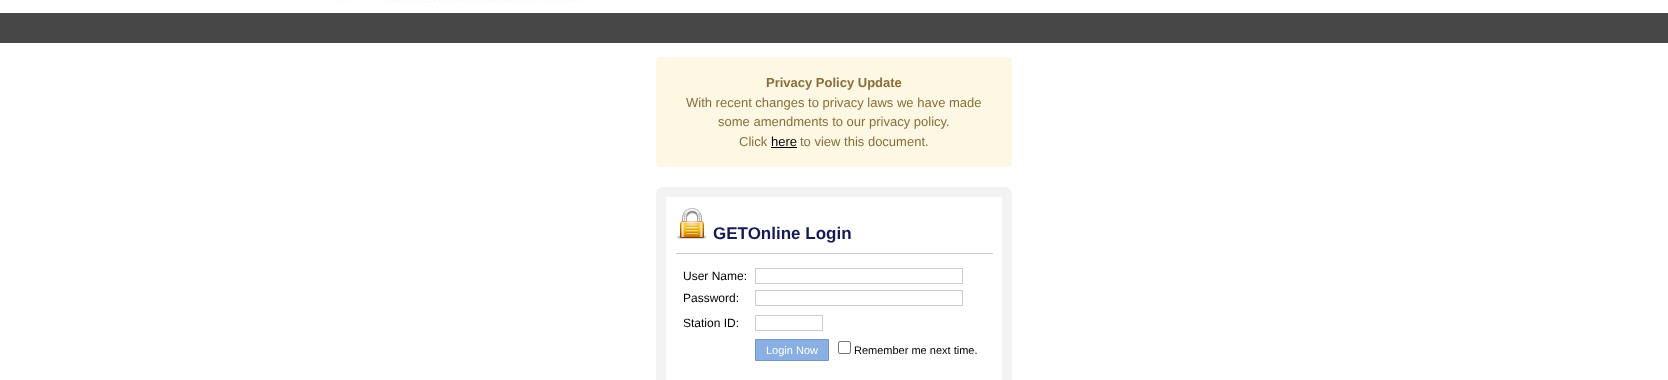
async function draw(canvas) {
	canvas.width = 1668;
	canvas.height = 380;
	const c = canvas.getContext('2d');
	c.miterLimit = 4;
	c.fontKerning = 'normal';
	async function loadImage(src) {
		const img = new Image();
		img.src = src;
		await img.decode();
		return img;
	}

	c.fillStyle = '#fff';
	c.fillRect(0, 0, 1668, 380);
	c.drawImage(await loadImage('img1.png'), 334, 0, 247, 3);
	c.fillStyle = '#474747';
	c.fillRect(0, 13, 1668, 30);
	c.fillStyle = '#fcf8e3';
	c.beginPath();
	c.roundRect(656, 57, 356, 110, 4);
	c.fill();
	c.font = 'bold 13px Liberation Sans';
	c.fillStyle = '#8a6d3b';
	c.fillText('Privacy Policy Update', 766, 87);
	c.font = '13px Liberation Sans';
	for (const [text, x, y] of [
		['With recent changes to privacy laws we have made', 686, 107],
		['some amendments to our privacy policy.', 718, 126],
		['Click', 739, 146],
	]) {
		c.fillText(text, x, y);
	}
	c.fillStyle = '#000';
	c.fillText('here', 771, 146);
	c.fillRect(771, 147, 26, 1);
	c.fillStyle = '#8a6d3b';
	c.fillText('to view this document.', 800, 146);
	for (const [x, y, w, h, color] of [
		[656, 187, 356, 193, '#f3f3f3'],
		[1007, 187, 5, 1, '#fff'],
		[656, 187, 5, 1, '#fff'],
		[1009, 188, 3, 1, '#fff'],
		[656, 188, 3, 1, '#fff'],
		[1010, 189, 2, 1, '#fff'],
		[656, 189, 2, 1, '#fff'],
		[1011, 190, 1, 2, '#fff'],
		[656, 190, 1, 2, '#fff'],
		[666, 197, 336, 183, '#fff'],
		[676, 253, 317, 1, '#ccc'],
	]) {
		c.fillStyle = color;
		c.fillRect(x, y, w, h);
	}
	c.drawImage(await loadImage('img2.png'), 676, 208, 31, 31);
	c.font = 'bold 17px Liberation Sans';
	c.fillStyle = '#151b54';
	c.fillText('GETOnline Login', 713, 239);
	c.font = '12px Liberation Sans';
	c.fillStyle = '#000';
	c.fillText('User Name:', 683, 280);
	c.strokeStyle = '#ccc';
	c.strokeRect(755.5, 268.5, 207, 15);
	c.fillText('Password:', 683, 302);
	c.strokeRect(755.5, 290.5, 207, 15);
	c.fillText('Station ID:', 683, 327);
	c.strokeRect(755.5, 315.5, 67, 15);
	c.fillStyle = '#8aafe2';
	c.beginPath();
	c.rect(755.5, 339.5, 73, 21);
	c.fill();
	c.strokeStyle = '#7296c8';
	c.stroke();
	c.font = '11px Liberation Sans';
	c.fillStyle = '#fff';
	c.fillText('Login Now', 766, 354);
	c.beginPath();
	c.roundRect(838.5, 341.5, 12, 12, 1.5);
	c.strokeStyle = '#767676';
	c.stroke();
	c.fillStyle = '#000';
	c.fillText('Remember me next time.', 854, 354);
}

draw(document.querySelector('canvas'));
